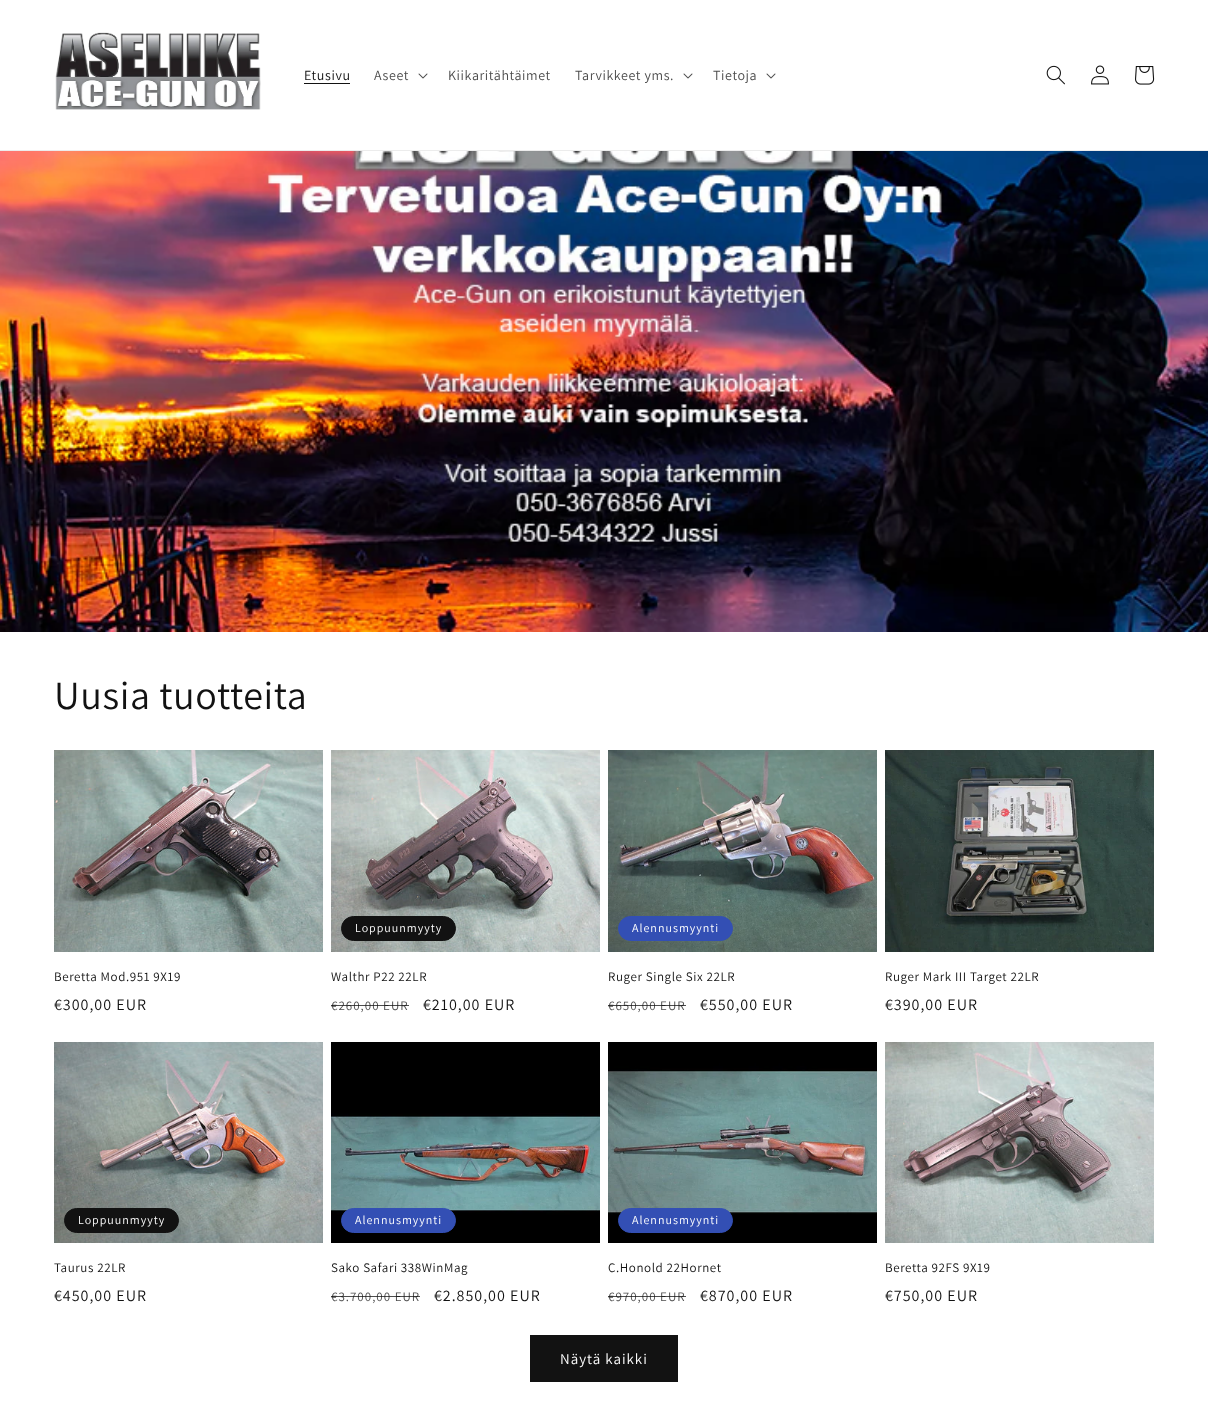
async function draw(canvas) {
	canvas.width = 1208;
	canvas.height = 1423;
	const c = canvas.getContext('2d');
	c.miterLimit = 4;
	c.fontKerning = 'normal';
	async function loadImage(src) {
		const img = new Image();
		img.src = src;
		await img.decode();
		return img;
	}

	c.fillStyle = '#fff';
	c.fillRect(0, 0, 1208, 1423);
	c.fillStyle = '#ececec';
	c.fillRect(0, 150, 1208, 1);
	c.drawImage(await loadImage('img1.png'), 55, 32, 206, 78);
	c.letterSpacing = '0.6px';
	c.font = '14px Assistant';
	c.fillStyle = '#121212';
	c.fillText('Etusivu', 304, 80);
	c.fillRect(304, 83, 46, 1);
	c.fillStyle = '#4d4d4d';
	c.fillText('Aseet', 374, 80);
	c.drawImage(await loadImage('img2.png'), 418, 73, 10, 6);
	c.fillText('Kiikaritähtäimet', 448, 80);
	c.fillText('Tarvikkeet yms.', 575, 80);
	c.drawImage(await loadImage('img2.png'), 683, 73, 10, 6);
	c.fillText('Tietoja', 713, 80);
	c.drawImage(await loadImage('img2.png'), 766, 73, 10, 6);
	c.drawImage(await loadImage('img3.png'), 1046, 65, 19, 20);
	c.drawImage(await loadImage('img4.png'), 1091, 65, 18, 20);
	c.drawImage(await loadImage('img5.png'), 1135, 66, 20, 19);
	c.drawImage(await loadImage('img6.png'), 0, 151, 1208, 481);
	c.font = '40px Assistant';
	c.fillStyle = '#121212';
	c.fillText('Uusia tuotteita', 54, 709);
	c.drawImage(await loadImage('img7.png'), 54, 750, 269, 202);
	c.font = '13px Assistant';
	c.fillText('Beretta Mod.951 9X19', 54, 981);
	c.letterSpacing = '1px';
	c.font = '16px Assistant';
	c.fillText('€300,00 EUR', 54, 1010);
	c.drawImage(await loadImage('img8.png'), 331, 750, 269, 202);
	c.beginPath();
	c.roundRect(341.5, 916.5, 114, 24, 12);
	c.fill();
	c.strokeStyle = '#121212';
	c.stroke();
	c.font = '12px Assistant';
	c.fillStyle = '#fff';
	c.fillText('Loppuunmyyty', 355, 932);
	c.letterSpacing = '0.6px';
	c.font = '13px Assistant';
	c.fillStyle = '#121212';
	c.fillText('Walthr P22 22LR', 331, 981);
	c.letterSpacing = '1px';
	c.fillStyle = '#4d4d4d';
	c.fillText('€260,00 EUR', 331, 1010);
	c.fillStyle = '#121212bf';
	c.fillRect(331, 1005, 78, 1);
	c.font = '16px Assistant';
	c.fillStyle = '#121212';
	c.fillText('€210,00 EUR', 423, 1010);
	c.drawImage(await loadImage('img9.png'), 608, 750, 269, 202);
	c.fillStyle = '#334fb4';
	c.beginPath();
	c.roundRect(618.5, 916.5, 114, 24, 12);
	c.fill();
	c.strokeStyle = '#334fb4';
	c.stroke();
	c.font = '12px Assistant';
	c.fillStyle = '#fff';
	c.fillText('Alennusmyynti', 632, 932);
	c.letterSpacing = '0.6px';
	c.font = '13px Assistant';
	c.fillStyle = '#121212';
	c.fillText('Ruger Single Six 22LR', 608, 981);
	c.letterSpacing = '1px';
	c.fillStyle = '#4d4d4d';
	c.fillText('€650,00 EUR', 608, 1010);
	c.fillStyle = '#121212bf';
	c.fillRect(608, 1005, 78, 1);
	c.font = '16px Assistant';
	c.fillStyle = '#121212';
	c.fillText('€550,00 EUR', 700, 1010);
	c.drawImage(await loadImage('img10.png'), 885, 750, 269, 202);
	c.letterSpacing = '0.6px';
	c.font = '13px Assistant';
	c.fillText('Ruger Mark III Target 22LR', 885, 981);
	c.letterSpacing = '1px';
	c.font = '16px Assistant';
	c.fillText('€390,00 EUR', 885, 1010);
	c.drawImage(await loadImage('img11.png'), 54, 1042, 269, 201);
	c.beginPath();
	c.roundRect(64.5, 1208.5, 114, 24, 12);
	c.fill();
	c.strokeStyle = '#121212';
	c.stroke();
	c.font = '12px Assistant';
	c.fillStyle = '#fff';
	c.fillText('Loppuunmyyty', 78, 1224);
	c.letterSpacing = '0.6px';
	c.font = '13px Assistant';
	c.fillStyle = '#121212';
	c.fillText('Taurus 22LR', 54, 1272);
	c.letterSpacing = '1px';
	c.font = '16px Assistant';
	c.fillText('€450,00 EUR', 54, 1301);
	c.drawImage(await loadImage('img12.png'), 331, 1042, 269, 201);
	c.fillStyle = '#334fb4';
	c.beginPath();
	c.roundRect(341.5, 1208.5, 114, 24, 12);
	c.fill();
	c.strokeStyle = '#334fb4';
	c.stroke();
	c.font = '12px Assistant';
	c.fillStyle = '#fff';
	c.fillText('Alennusmyynti', 355, 1224);
	c.letterSpacing = '0.6px';
	c.font = '13px Assistant';
	c.fillStyle = '#121212';
	c.fillText('Sako Safari 338WinMag', 331, 1272);
	c.letterSpacing = '1px';
	c.fillStyle = '#4d4d4d';
	c.fillText('€3.700,00 EUR', 331, 1301);
	c.fillStyle = '#121212bf';
	c.fillRect(331, 1296, 89, 1);
	c.font = '16px Assistant';
	c.fillStyle = '#121212';
	c.fillText('€2.850,00 EUR', 434, 1301);
	c.drawImage(await loadImage('img13.png'), 608, 1042, 269, 201);
	c.fillStyle = '#334fb4';
	c.beginPath();
	c.roundRect(618.5, 1208.5, 114, 24, 12);
	c.fill();
	c.stroke();
	c.font = '12px Assistant';
	c.fillStyle = '#fff';
	c.fillText('Alennusmyynti', 632, 1224);
	c.letterSpacing = '0.6px';
	c.font = '13px Assistant';
	c.fillStyle = '#121212';
	c.fillText('C.Honold 22Hornet', 608, 1272);
	c.letterSpacing = '1px';
	c.fillStyle = '#4d4d4d';
	c.fillText('€970,00 EUR', 608, 1301);
	c.fillStyle = '#121212bf';
	c.fillRect(608, 1296, 78, 1);
	c.font = '16px Assistant';
	c.fillStyle = '#121212';
	c.fillText('€870,00 EUR', 700, 1301);
	c.drawImage(await loadImage('img14.png'), 885, 1042, 269, 201);
	c.letterSpacing = '0.6px';
	c.font = '13px Assistant';
	c.fillText('Beretta 92FS 9X19', 885, 1272);
	c.letterSpacing = '1px';
	c.font = '16px Assistant';
	c.fillText('€750,00 EUR', 885, 1301);
	c.fillRect(530, 1335, 148, 47);
	c.font = '15px Assistant';
	c.fillStyle = '#fff';
	c.fillText('Näytä kaikki', 560, 1364);
}

draw(document.querySelector('canvas'));
